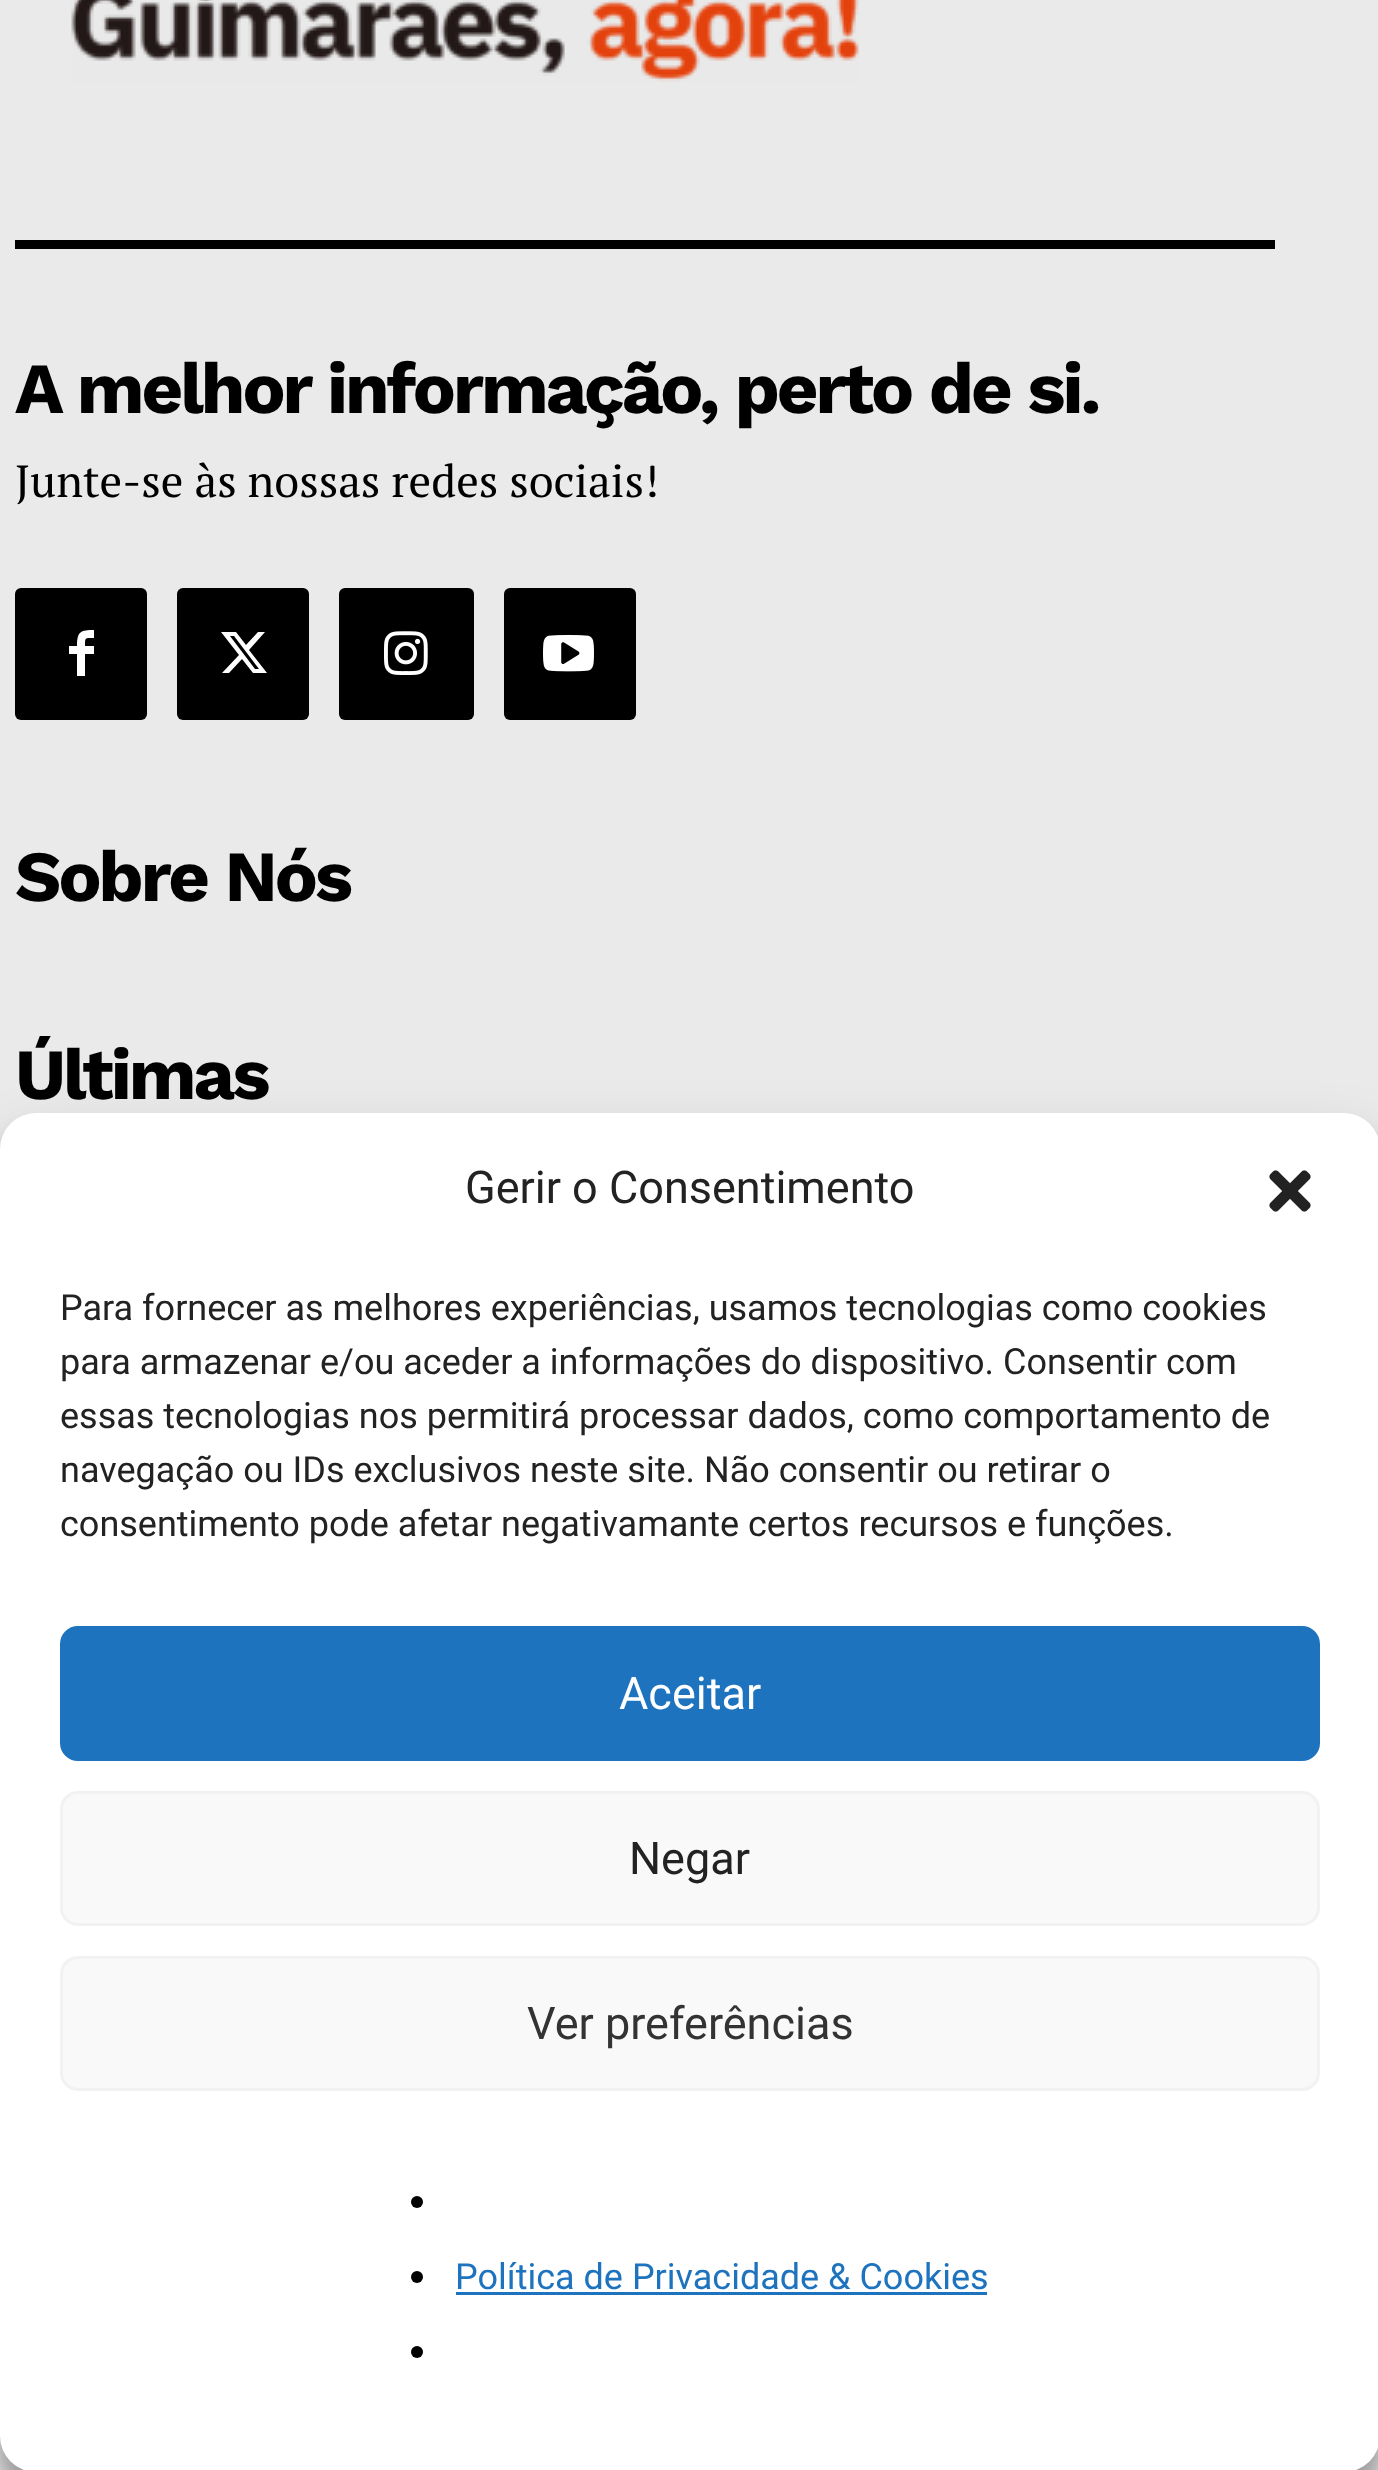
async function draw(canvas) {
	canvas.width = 1378;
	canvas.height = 2470;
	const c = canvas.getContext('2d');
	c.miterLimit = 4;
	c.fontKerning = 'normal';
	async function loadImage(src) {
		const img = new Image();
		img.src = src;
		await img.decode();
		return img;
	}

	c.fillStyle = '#eaeaea';
	c.fillRect(0, 0, 1378, 2470);
	c.drawImage(await loadImage('img1.png'), 71, 0, 788, 82);
	c.fillStyle = '#000';
	c.fillRect(15, 240, 1260, 9);
	c.letterSpacing = '-3px';
	c.font = 'bold 72px Work Sans';
	c.fillText('A melhor informação, perto de si.', 15, 413);
	c.letterSpacing = '0px';
	c.font = '45px PT Serif';
	c.fillText('Junte-se às nossas redes sociais!', 15, 497);
	c.beginPath();
	c.roundRect(15, 588, 132, 132, 6);
	c.fill();
	c.fillStyle = '#fff';
	c.beginPath();
	c.moveTo(94, 638);
	c.bezierCurveTo(85, 638, 85, 637, 85, 646);
	c.lineTo(94, 646);
	c.lineTo(94, 654);
	c.lineTo(85, 654);
	c.lineTo(85, 676);
	c.lineTo(77, 676);
	c.lineTo(77, 654);
	c.lineTo(69, 654);
	c.lineTo(69, 646);
	c.lineTo(77, 646);
	c.bezierCurveTo(77, 631, 81, 630, 94, 630);
	c.closePath();
	c.fill();
	c.fillStyle = '#000';
	c.beginPath();
	c.roundRect(177, 588, 132, 132, 6);
	c.fill();
	c.fillStyle = '#fff';
	c.beginPath();
	c.moveTo(258, 632);
	c.lineTo(265, 632);
	c.lineTo(249, 650);
	c.lineTo(267, 673);
	c.lineTo(253, 673);
	c.lineTo(242, 659);
	c.lineTo(229, 673);
	c.lineTo(222, 673);
	c.lineTo(239, 655);
	c.lineTo(221, 632);
	c.lineTo(236, 632);
	c.lineTo(246, 645);
	c.closePath();
	c.moveTo(255, 669);
	c.lineTo(259, 669);
	c.lineTo(234, 636);
	c.lineTo(230, 636);
	c.closePath();
	c.fill();
	c.fillStyle = '#000';
	c.beginPath();
	c.roundRect(339, 588, 135, 132, 6);
	c.fill();
	c.drawImage(await loadImage('img2.png'), 384, 631, 44, 44);
	c.beginPath();
	c.roundRect(504, 588, 132, 132, 6);
	c.fill();
	c.drawImage(await loadImage('img3.png'), 543, 634, 51, 38);
	c.letterSpacing = '-3px';
	c.font = 'bold 72px Work Sans';
	c.fillText('Sobre Nós', 15, 901);
	c.fillText('Últimas', 15, 1099);
	c.fillStyle = '#0000003b';
	c.filter = 'blur(9px)';
	c.beginPath();
	c.roundRect(0, 1131, 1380, 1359, 36);
	c.fill();
	c.filter = 'none';
	c.fillStyle = '#00000030';
	c.filter = 'blur(30px)';
	c.beginPath();
	c.roundRect(0, 1143, 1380, 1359, 36);
	c.fill();
	c.filter = 'none';
	c.fillStyle = '#fff';
	c.beginPath();
	c.roundRect(0, 1113, 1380, 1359, 36);
	c.fill();
	c.letterSpacing = '0px';
	c.font = '45px Roboto';
	c.fillStyle = '#222';
	c.fillText('Gerir o Consentimento', 465, 1203);
	c.drawImage(await loadImage('img4.png'), 1269, 1170, 42, 42);
	c.font = '36px Roboto';
	for (const [text, x, y] of [
		['Para fornecer as melhores experiências, usamos tecnologias como cookies', 60, 1320],
		['para armazenar e/ou aceder a informações do dispositivo. Consentir com', 60, 1374],
		['essas tecnologias nos permitirá processar dados, como comportamento de', 60, 1428],
		['navegação ou IDs exclusivos neste site. Não consentir ou retirar o', 60, 1482],
		['consentimento pode afetar negativamante certos recursos e funções.', 60, 1536],
	]) {
		c.fillText(text, x, y);
	}
	c.fillStyle = '#1e73be';
	c.beginPath();
	c.roundRect(61.5, 1627.5, 1257, 132, 16.5);
	c.fill();
	c.strokeStyle = '#1e73be';
	c.lineWidth = 3;
	c.stroke();
	c.font = '45px Roboto';
	c.fillStyle = '#fff';
	c.fillText('Aceitar', 619, 1709);
	c.fillStyle = '#f9f9f9';
	c.beginPath();
	c.roundRect(61.5, 1792.5, 1257, 132, 16.5);
	c.fill();
	c.strokeStyle = '#f2f2f2';
	c.stroke();
	c.fillStyle = '#222';
	c.fillText('Negar', 629, 1874);
	c.fillStyle = '#f9f9f9';
	c.beginPath();
	c.roundRect(61.5, 1957.5, 1257, 132, 16.5);
	c.fill();
	c.stroke();
	c.fillStyle = '#333';
	c.fillText('Ver preferências', 527, 2039);
	c.fillStyle = '#000';
	c.beginPath();
	c.arc(417, 2202, 6, 0, 2 * Math.PI);
	c.fill();
	c.beginPath();
	c.arc(417, 2277, 6, 0, 2 * Math.PI);
	c.fill();
	c.font = '36px Roboto';
	c.fillStyle = '#1e73be';
	c.fillText('Política de Privacidade & Cookies', 455, 2289);
	c.fillRect(456, 2292, 531, 3);
	c.fillStyle = '#000';
	c.beginPath();
	c.arc(417, 2352, 6, 0, 2 * Math.PI);
	c.fill();
}

draw(document.querySelector('canvas'));
